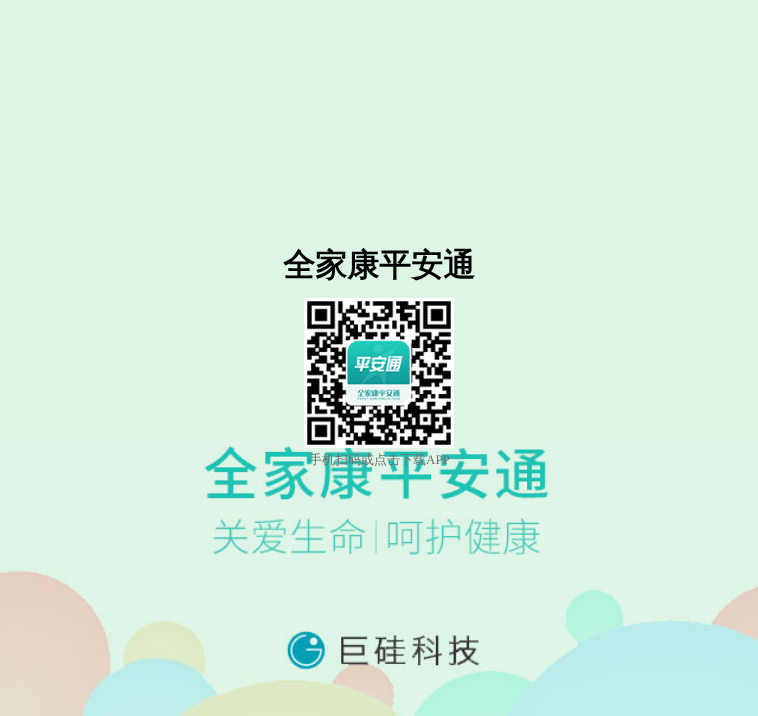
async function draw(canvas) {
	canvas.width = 758;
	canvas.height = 716;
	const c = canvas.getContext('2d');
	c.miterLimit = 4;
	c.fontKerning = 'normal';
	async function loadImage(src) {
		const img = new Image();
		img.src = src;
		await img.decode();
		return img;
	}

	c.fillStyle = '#def5e6';
	c.fillRect(0, 0, 758, 716);
	c.drawImage(await loadImage('img1.png'), 0, 441, 758, 275);
	c.font = 'bold 32px WenQuanYi Zen Hei';
	c.fillStyle = '#000';
	c.fillText('全家康平安通', 283, 276);
	c.drawImage(await loadImage('img2.png'), 304, 298, 150, 150);
	c.font = '500 13px WenQuanYi Zen Hei';
	c.fillStyle = '#707070';
	c.fillText('手机扫码或点击下载', 309, 464);
	c.font = '13px Liberation Serif';
	c.fillText('APP', 426, 464);
}

draw(document.querySelector('canvas'));
